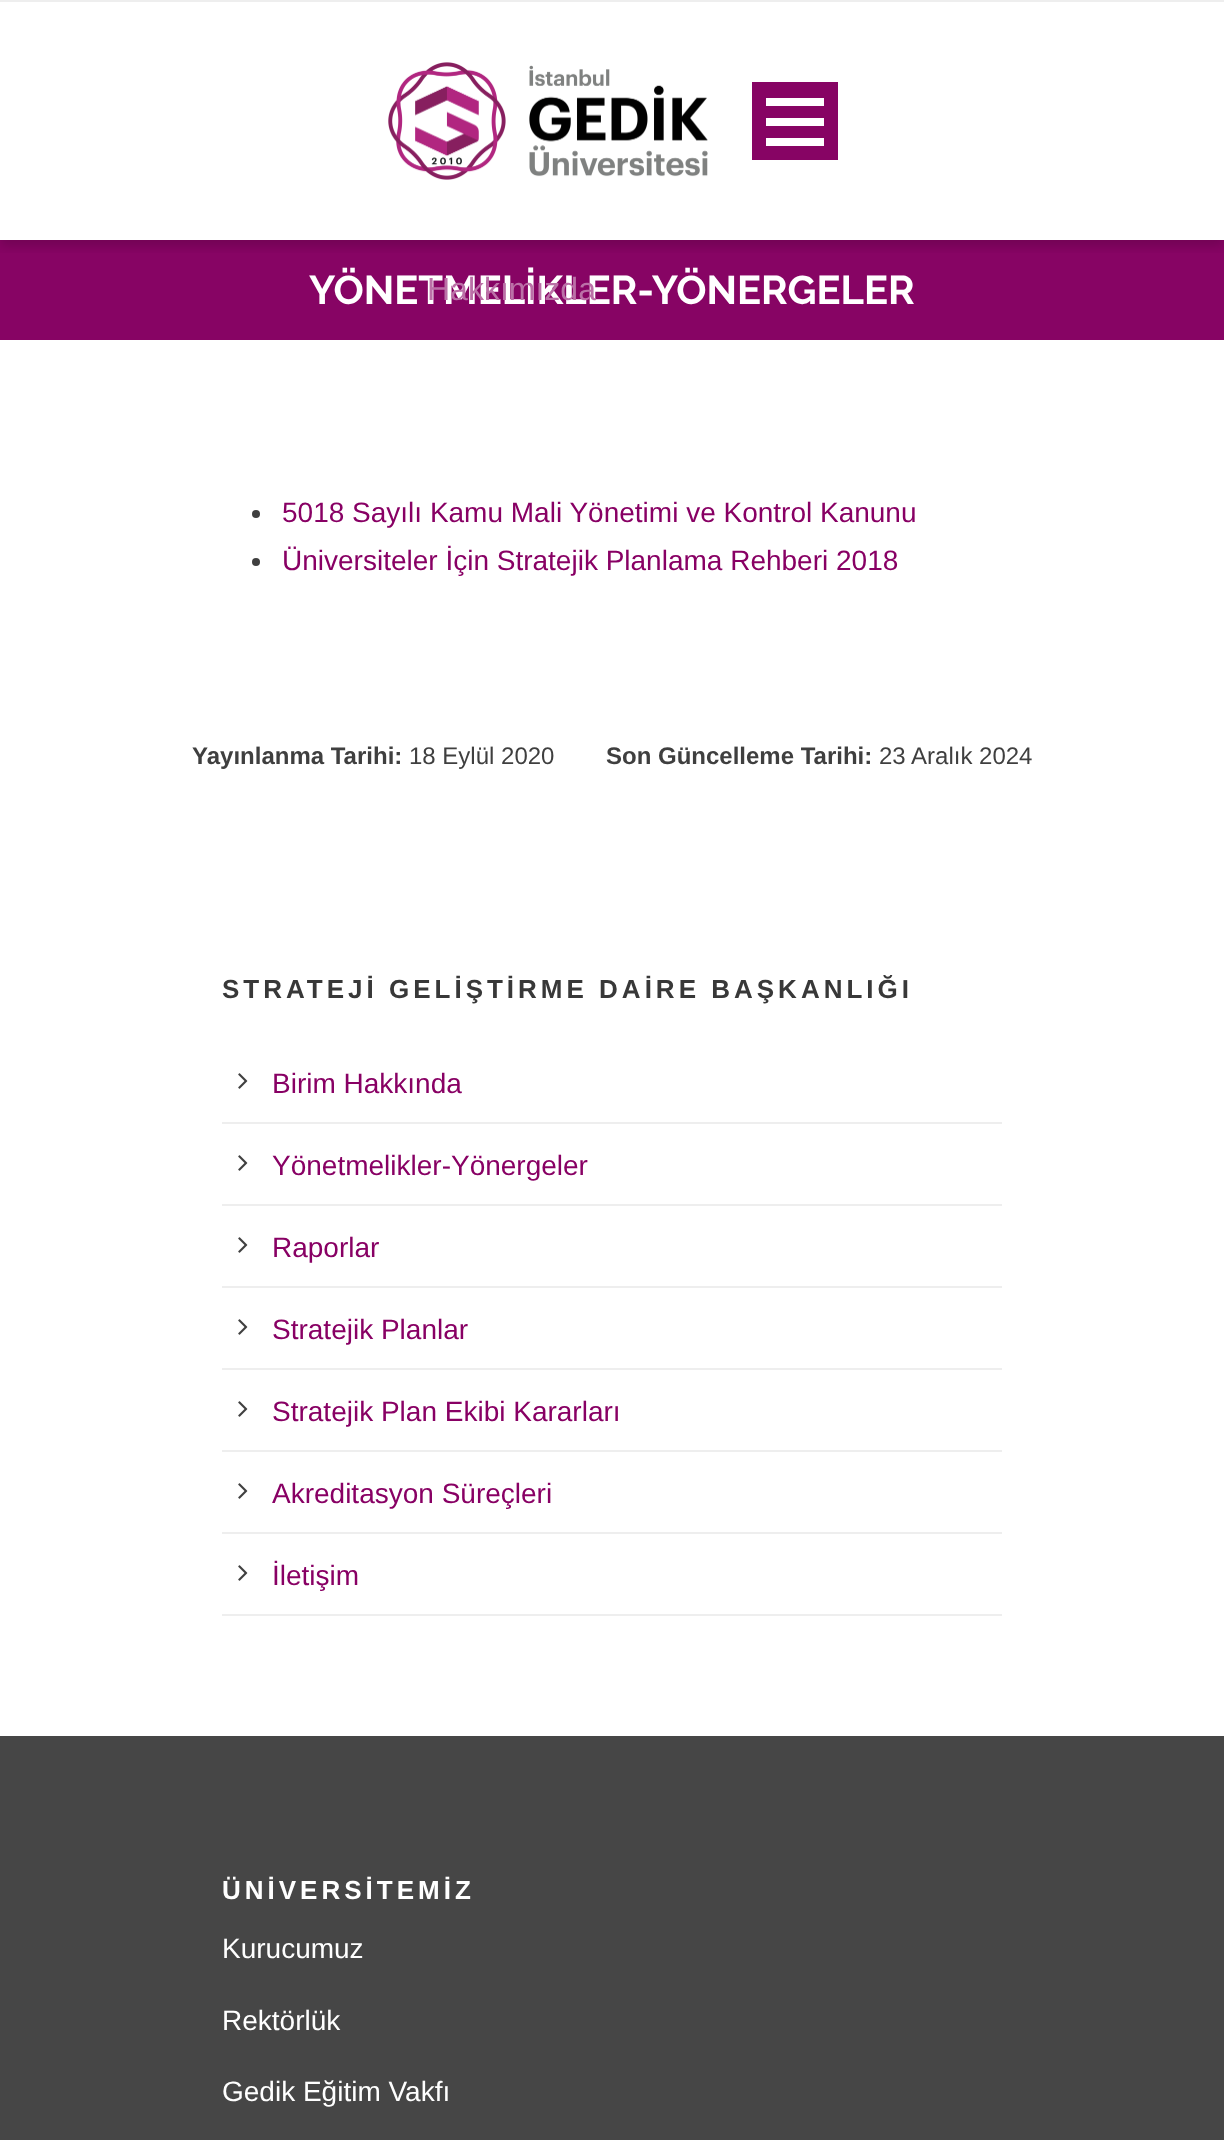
async function draw(canvas) {
	canvas.width = 1224;
	canvas.height = 2140;
	const c = canvas.getContext('2d');
	c.miterLimit = 4;
	c.fontKerning = 'normal';
	async function loadImage(src) {
		const img = new Image();
		img.src = src;
		await img.decode();
		return img;
	}

	c.fillStyle = '#fff';
	c.fillRect(0, 0, 1224, 2140);
	c.fillStyle = '#870464';
	c.fillRect(0, 240, 1224, 100);
	c.font = 'bold 40px Raleway';
	c.fillStyle = '#fff';
	c.fillText('YÖNETMELİKLER-YÖNERGELER', 309, 304);
	c.save();
	c.beginPath();
	c.rect(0, 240, 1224, 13);
	c.clip();
	c.fillStyle = '#00000029';
	c.filter = 'blur(6px)';
	c.beginPath();
	c.rect(0, 8, 1224, 238);
	c.fill();
	c.filter = 'none';
	c.restore();
	c.fillStyle = '#eee';
	c.fillRect(0, 0, 1224, 2);
	c.drawImage(await loadImage('img1.png'), 388, 62, 320, 118);
	for (const [x, y, w, h, color] of [
		[752, 82, 86, 78, '#870464'],
		[766, 138, 58, 8, '#fff'],
		[766, 118, 58, 8, '#fff'],
		[766, 98, 58, 8, '#fff'],
	]) {
		c.fillStyle = color;
		c.fillRect(x, y, w, h);
	}
	c.font = '32px Liberation Sans';
	c.fillStyle = '#bb70a7';
	c.fillText('Hakkımızda', 427, 300);
	c.fillStyle = '#3f3f3f';
	c.beginPath();
	c.arc(256, 514, 4, 0, 2 * Math.PI);
	c.fill();
	c.font = '28px Liberation Sans';
	c.fillStyle = '#880064';
	c.fillText('5018 Sayılı Kamu Mali Yönetimi ve Kontrol Kanunu', 282, 522);
	c.fillStyle = '#3f3f3f';
	c.beginPath();
	c.arc(256, 562, 4, 0, 2 * Math.PI);
	c.fill();
	c.fillStyle = '#880064';
	c.fillText('Üniversiteler İçin Stratejik Planlama Rehberi 2018', 282, 570);
	c.font = 'bold 24px Liberation Sans';
	c.fillStyle = '#3f3f3f';
	c.fillText('Yayınlanma Tarihi:', 192, 764);
	c.font = '24px Liberation Sans';
	c.fillText('18 Eylül 2020', 409, 764);
	c.font = 'bold 24px Liberation Sans';
	c.fillText('Son Güncelleme Tarihi:', 606, 764);
	c.font = '24px Liberation Sans';
	c.fillText('23 Aralık 2024', 879, 764);
	c.letterSpacing = '4px';
	c.font = 'bold 26px Liberation Sans';
	c.fillStyle = '#383838';
	c.fillText('STRATEJİ GELİŞTİRME DAİRE BAŞKANLIĞI', 222, 998);
	c.fillStyle = '#eee';
	c.fillRect(222, 1122, 780, 2);
	c.drawImage(await loadImage('img2.png'), 238, 1073, 10, 16);
	c.letterSpacing = '0px';
	c.font = '28px Liberation Sans';
	c.fillStyle = '#880064';
	c.fillText('Birim Hakkında', 272, 1093);
	c.fillStyle = '#eee';
	c.fillRect(222, 1204, 780, 2);
	c.drawImage(await loadImage('img2.png'), 238, 1155, 10, 16);
	c.fillStyle = '#880064';
	c.fillText('Yönetmelikler-Yönergeler', 272, 1175);
	c.fillStyle = '#eee';
	c.fillRect(222, 1286, 780, 2);
	c.drawImage(await loadImage('img2.png'), 238, 1237, 10, 16);
	c.fillStyle = '#880064';
	c.fillText('Raporlar', 272, 1257);
	c.fillStyle = '#eee';
	c.fillRect(222, 1368, 780, 2);
	c.drawImage(await loadImage('img2.png'), 238, 1319, 10, 16);
	c.fillStyle = '#880064';
	c.fillText('Stratejik Planlar', 272, 1339);
	c.fillStyle = '#eee';
	c.fillRect(222, 1450, 780, 2);
	c.drawImage(await loadImage('img2.png'), 238, 1401, 10, 16);
	c.fillStyle = '#880064';
	c.fillText('Stratejik Plan Ekibi Kararları', 272, 1421);
	c.fillStyle = '#eee';
	c.fillRect(222, 1532, 780, 2);
	c.drawImage(await loadImage('img2.png'), 238, 1483, 10, 16);
	c.fillStyle = '#880064';
	c.fillText('Akreditasyon Süreçleri', 272, 1503);
	c.fillStyle = '#eee';
	c.fillRect(222, 1614, 780, 2);
	c.drawImage(await loadImage('img2.png'), 238, 1565, 10, 16);
	c.fillStyle = '#880064';
	c.fillText('İletişim', 272, 1585);
	c.fillStyle = '#464646';
	c.fillRect(0, 1736, 1224, 404);
	c.letterSpacing = '4px';
	c.font = 'bold 26px Liberation Sans';
	c.fillStyle = '#fff';
	c.fillText('ÜNİVERSİTEMİZ', 222, 1899);
	c.letterSpacing = '0px';
	c.font = '28px Liberation Sans';
	for (const [text, x, y] of [
		['Kurucumuz', 222, 1958],
		['Rektörlük', 222, 2030],
		['Gedik Eğitim Vakfı', 222, 2101],
	]) {
		c.fillText(text, x, y);
	}
}

draw(document.querySelector('canvas'));
